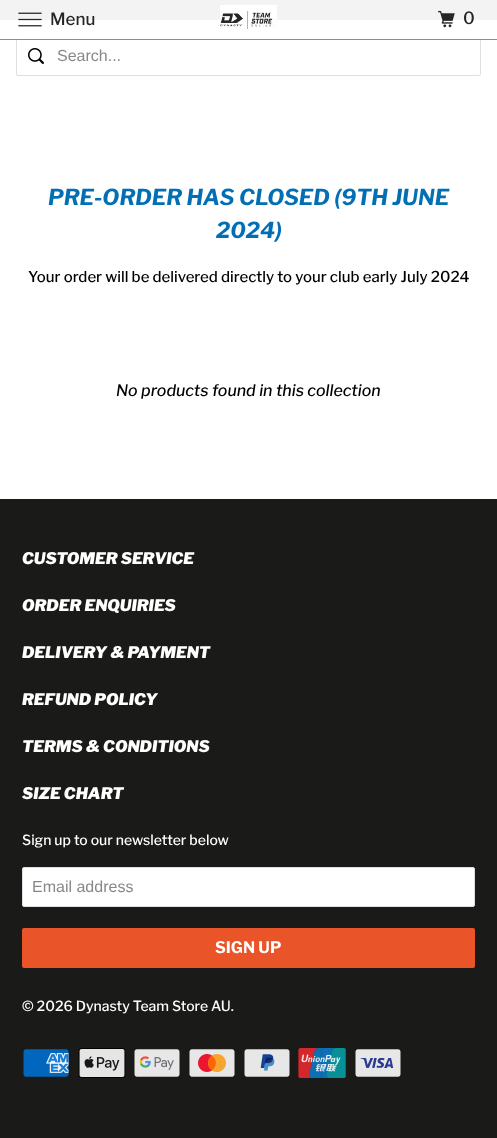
async function draw(canvas) {
	canvas.width = 497;
	canvas.height = 1138;
	const c = canvas.getContext('2d');
	c.miterLimit = 4;
	c.fontKerning = 'normal';
	async function loadImage(src) {
		const img = new Image();
		img.src = src;
		await img.decode();
		return img;
	}

	c.fillStyle = '#1a1b18';
	c.fillRect(0, 0, 497, 1138);
	c.fillStyle = '#fff';
	c.fillRect(0, 20, 497, 479);
	c.beginPath();
	c.roundRect(16.5, 36.5, 464, 39, 1.5);
	c.strokeStyle = '#dfdfdf';
	c.stroke();
	c.fillStyle = '#fffffff2';
	c.fillRect(0, 0, 497, 39);
	c.fillStyle = '#859293';
	c.fillRect(0, 39, 497, 1);
	c.drawImage(await loadImage('img1.png'), 18, 12, 24, 15);
	c.font = '500 17px Libre Franklin';
	c.fillStyle = '#252623';
	c.fillText('Menu', 50, 25);
	c.drawImage(await loadImage('img2.png'), 220, 5, 57, 24);
	c.drawImage(await loadImage('img3.png'), 438, 10, 17, 18);
	c.fillText('0', 463, 24);
	c.drawImage(await loadImage('img4.png'), 28, 48, 16, 16);
	c.font = '16px Liberation Sans';
	c.fillStyle = '#888';
	c.fillText('Search...', 57, 61);
	c.font = 'italic bold 22px Libre Franklin';
	c.fillStyle = '#026fb4';
	c.fillText('PRE-ORDER HAS CLOSED (9TH JUNE', 48, 205);
	c.fillText('2024)', 216, 238);
	c.font = '500 15px Libre Franklin';
	c.fillStyle = '#000';
	c.fillText('Your order will be delivered directly to your club early July 2024', 28, 282);
	c.font = 'italic 500 16px Libre Franklin';
	c.fillText('No products found in this collection', 116, 396);
	c.font = 'italic 900 16px Libre Franklin';
	c.fillStyle = '#fff';
	for (const [text, x, y] of [
		['CUSTOMER SERVICE', 22, 564],
		['ORDER ENQUIRIES', 22, 611],
		['DELIVERY & PAYMENT', 22, 658],
		['REFUND POLICY', 22, 705],
		['TERMS & CONDITIONS', 22, 752],
		['SIZE CHART', 22, 799],
	]) {
		c.fillText(text, x, y);
	}
	c.font = '500 14px Libre Franklin';
	c.fillText('Sign up to our newsletter below', 22, 845);
	c.beginPath();
	c.roundRect(22.5, 867.5, 452, 39, 1.5);
	c.fill();
	c.stroke();
	c.font = '16px Liberation Sans';
	c.fillStyle = '#888';
	c.fillText('Email address', 32, 892);
	c.fillStyle = '#e95428';
	c.beginPath();
	c.roundRect(22, 928, 453, 40, 2);
	c.fill();
	c.font = 'bold 16px Libre Franklin';
	c.fillStyle = '#fff';
	c.fillText('SIGN UP', 215, 953);
	c.font = '500 14px Libre Franklin';
	c.fillText('© 2026 Dynasty Team Store AU.', 22, 1011);
	c.drawImage(await loadImage('img5.png'), 23, 1049, 46, 28);
	c.drawImage(await loadImage('img6.png'), 78, 1048, 48, 30);
	c.drawImage(await loadImage('img7.png'), 134, 1049, 46, 28);
	c.drawImage(await loadImage('img8.png'), 189, 1049, 46, 28);
	c.drawImage(await loadImage('img9.png'), 244, 1049, 46, 28);
	c.drawImage(await loadImage('img10.png'), 298, 1048, 48, 30);
	c.drawImage(await loadImage('img11.png'), 355, 1049, 46, 28);
}

draw(document.querySelector('canvas'));
